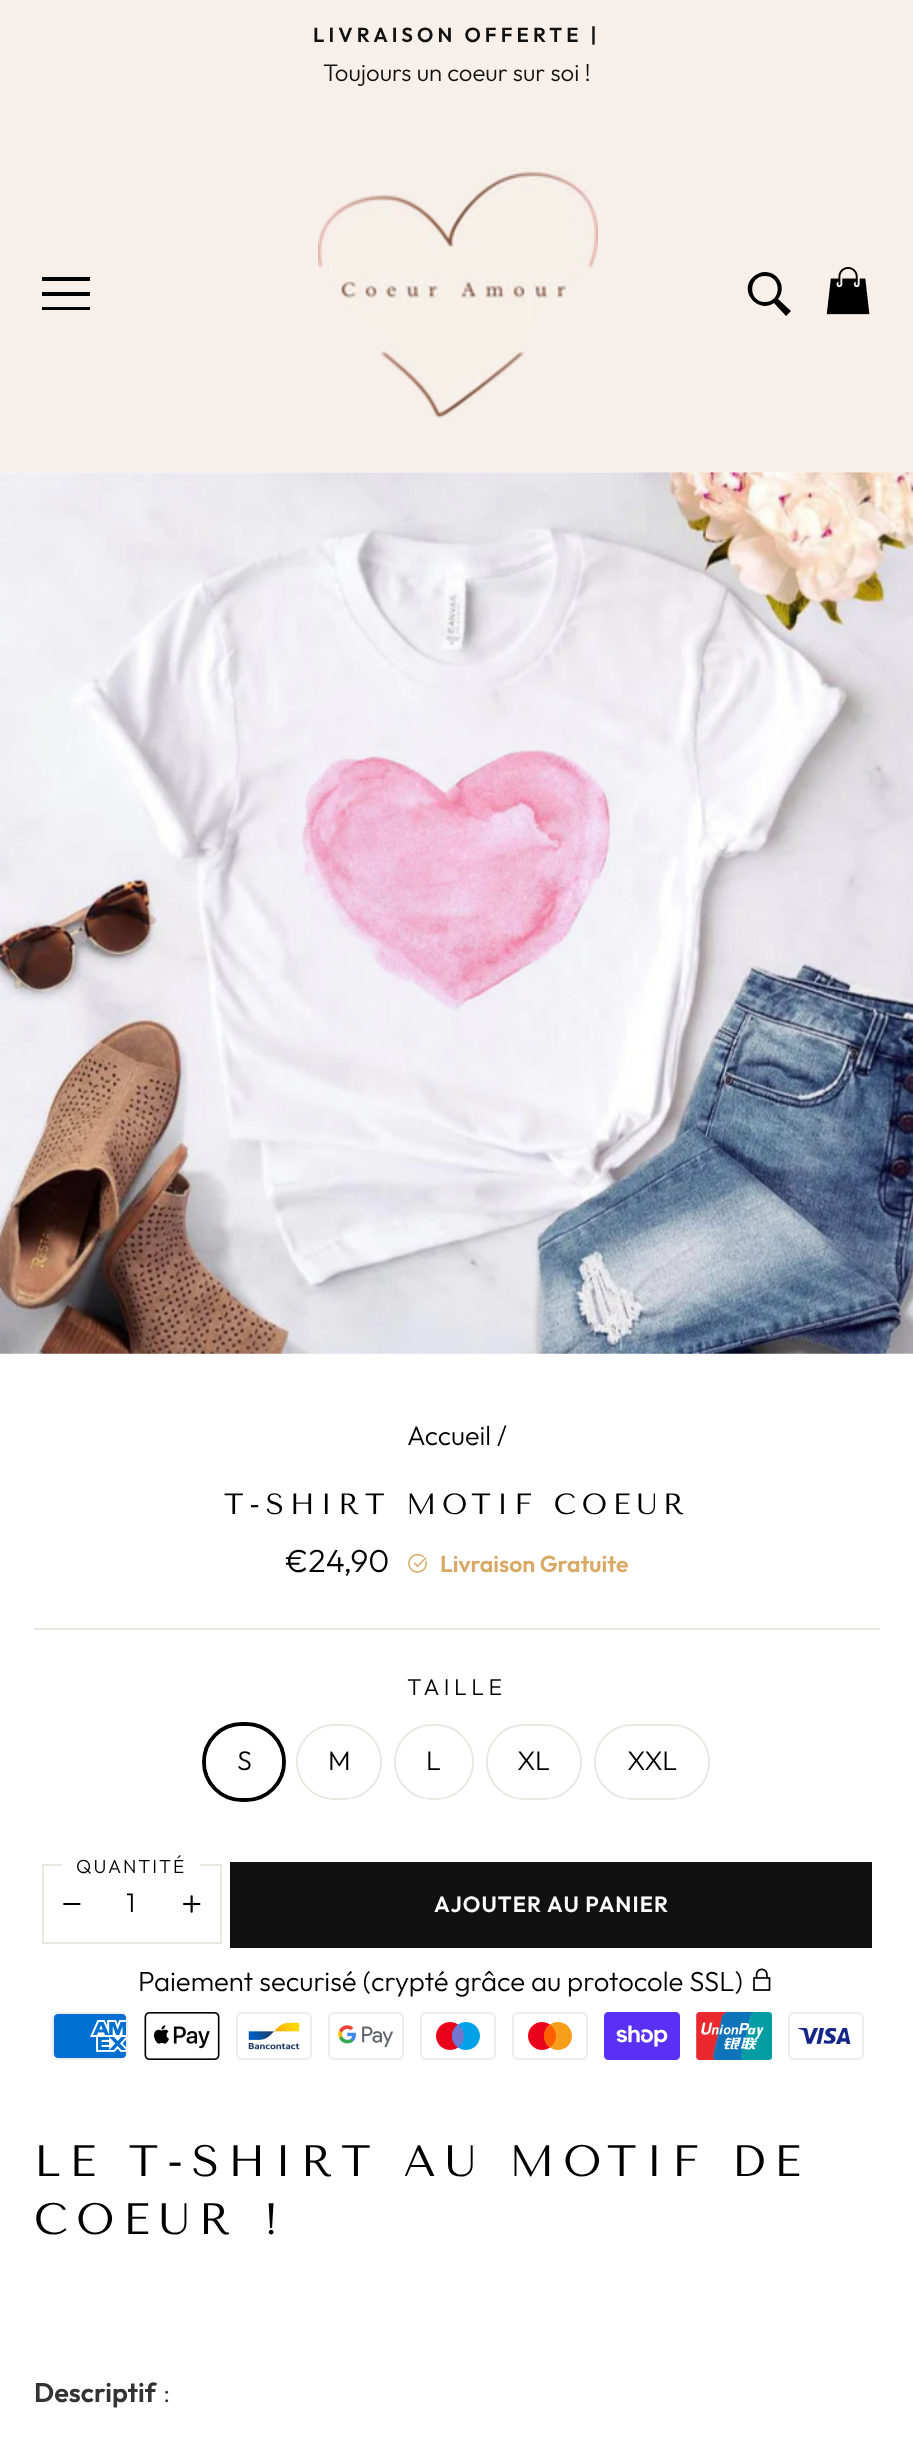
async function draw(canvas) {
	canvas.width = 913;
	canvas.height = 2437;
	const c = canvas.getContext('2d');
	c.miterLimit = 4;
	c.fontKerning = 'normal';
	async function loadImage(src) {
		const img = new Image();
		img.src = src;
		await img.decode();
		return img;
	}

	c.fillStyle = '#fff';
	c.fillRect(0, 0, 913, 2437);
	c.fillStyle = '#f7f0ea';
	c.fillRect(0, 0, 913, 472);
	c.letterSpacing = '4.1px';
	c.font = '600 20.4px Outfit';
	c.fillStyle = '#111';
	c.fillText('LIVRAISON OFFERTE |', 313, 42);
	c.letterSpacing = '0px';
	c.font = '300 24px Outfit';
	c.fillText('Toujours un coeur sur soi !', 323, 81);
	c.fillStyle = '#000';
	c.beginPath();
	c.moveTo(42, 277);
	c.lineTo(42, 281);
	c.lineTo(90, 281);
	c.lineTo(90, 277);
	c.closePath();
	c.moveTo(42, 292);
	c.lineTo(42, 296);
	c.lineTo(90, 296);
	c.lineTo(90, 292);
	c.closePath();
	c.moveTo(42, 307);
	c.lineTo(42, 310);
	c.lineTo(90, 310);
	c.lineTo(90, 307);
	c.closePath();
	c.fill();
	c.drawImage(await loadImage('img1.png'), 318, 168, 280, 251);
	c.beginPath();
	c.moveTo(765, 272);
	c.bezierCurveTo(761, 272, 756, 274, 753, 277);
	c.bezierCurveTo(738, 291, 758, 314, 774, 303);
	c.lineTo(786, 316);
	c.lineTo(791, 311);
	c.lineTo(778, 299);
	c.bezierCurveTo(787, 288, 779, 272, 765, 272);
	c.closePath();
	c.moveTo(765, 276);
	c.bezierCurveTo(782, 276, 782, 302, 765, 302);
	c.bezierCurveTo(748, 302, 748, 276, 765, 276);
	c.closePath();
	c.fill();
	c.drawImage(await loadImage('img2.png'), 826, 267, 44, 48);
	c.drawImage(await loadImage('img3.png'), 0, 472, 913, 882);
	c.font = '300 27px Outfit';
	c.fillText('Accueil /', 407, 1445);
	c.letterSpacing = '5.8px';
	c.font = '29.25px Tenor Sans';
	c.fillText('T-SHIRT MOTIF COEUR', 224, 1514);
	c.letterSpacing = '0px';
	c.font = '300 32px Outfit';
	c.fillText('€24,90', 285, 1572);
	c.drawImage(await loadImage('img4.png'), 408, 1553, 19, 20);
	c.font = '600 23px Outfit';
	c.fillStyle = '#d9a864';
	c.fillText('Livraison Gratuite', 440, 1572);
	c.fillStyle = '#e8e8e1';
	c.fillRect(34, 1628, 846, 2);
	c.letterSpacing = '4.5px';
	c.font = '300 23px Outfit';
	c.fillStyle = '#000';
	c.fillText('TAILLE', 407, 1695);
	c.beginPath();
	c.roundRect(204, 1724, 80, 76, 38);
	c.strokeStyle = '#000';
	c.lineWidth = 4;
	c.stroke();
	c.fillStyle = '#fff';
	c.beginPath();
	c.roundRect(206, 1726, 76, 72, 36);
	c.fill();
	c.letterSpacing = '0px';
	c.font = '300 27px Outfit';
	c.fillStyle = '#000';
	c.fillText('S', 237, 1770);
	c.beginPath();
	c.roundRect(297, 1725, 84, 74, 37);
	c.strokeStyle = '#e8e8e1';
	c.lineWidth = 2;
	c.stroke();
	c.fillStyle = '#fff';
	c.beginPath();
	c.roundRect(298, 1726, 82, 72, 36);
	c.fill();
	c.fillStyle = '#000';
	c.fillText('M', 328, 1770);
	c.beginPath();
	c.roundRect(395, 1725, 78, 74, 37);
	c.stroke();
	c.fillStyle = '#fff';
	c.beginPath();
	c.roundRect(396, 1726, 76, 72, 36);
	c.fill();
	c.fillStyle = '#000';
	c.fillText('L', 426, 1770);
	c.beginPath();
	c.roundRect(487, 1725, 94, 74, 37);
	c.stroke();
	c.fillStyle = '#fff';
	c.beginPath();
	c.roundRect(488, 1726, 92, 72, 36);
	c.fill();
	c.fillStyle = '#000';
	c.fillText('XL', 517, 1770);
	c.beginPath();
	c.roundRect(595, 1725, 114, 74, 37);
	c.stroke();
	c.fillStyle = '#fff';
	c.beginPath();
	c.roundRect(596, 1726, 112, 72, 36);
	c.fill();
	c.fillStyle = '#000';
	c.fillText('XXL', 627, 1770);
	c.strokeRect(43, 1865, 178, 78);
	c.fillStyle = '#fff';
	c.fillRect(62, 1864, 138, 2);
	c.letterSpacing = '2px';
	c.font = '300 19px Outfit';
	c.fillStyle = '#000';
	c.fillText('QUANTITÉ', 76, 1873);
	c.drawImage(await loadImage('img5.png'), 63, 1903, 18, 2);
	c.letterSpacing = '0px';
	c.font = '300 27px Outfit';
	c.fillText('1', 126, 1912);
	c.drawImage(await loadImage('img6.png'), 183, 1895, 18, 18);
	c.fillStyle = '#111';
	c.fillRect(230, 1862, 642, 86);
	c.letterSpacing = '1.1px';
	c.font = '600 22px Outfit';
	c.fillStyle = '#fff';
	c.fillText('AJOUTER AU PANIER', 434, 1912);
	c.letterSpacing = '0px';
	c.font = '300 27.5px Outfit';
	c.fillStyle = '#000';
	c.fillText('Paiement securisé (crypté grâce au protocole SSL)', 138, 1991);
	c.drawImage(await loadImage('img7.png'), 753, 1968, 18, 23);
	c.drawImage(await loadImage('img8.png'), 52, 2012, 76, 48);
	c.drawImage(await loadImage('img9.png'), 144, 2012, 76, 48);
	c.drawImage(await loadImage('img10.png'), 236, 2012, 76, 48);
	c.drawImage(await loadImage('img11.png'), 328, 2012, 76, 48);
	c.drawImage(await loadImage('img12.png'), 420, 2012, 76, 48);
	c.drawImage(await loadImage('img13.png'), 512, 2012, 76, 48);
	c.drawImage(await loadImage('img14.png'), 604, 2012, 76, 48);
	c.drawImage(await loadImage('img15.png'), 696, 2012, 76, 48);
	c.drawImage(await loadImage('img16.png'), 788, 2012, 76, 48);
	c.letterSpacing = '8.8px';
	c.font = '44px Tenor Sans';
	c.fillText('LE T-SHIRT AU MOTIF DE', 34, 2176);
	c.fillText('COEUR !', 34, 2234);
	c.letterSpacing = '0px';
	c.font = '600 27px Outfit';
	c.fillStyle = '#333';
	c.fillText('Descriptif', 34, 2402);
	c.font = '300 27px Outfit';
	c.fillText(':', 163, 2402);
}

draw(document.querySelector('canvas'));
